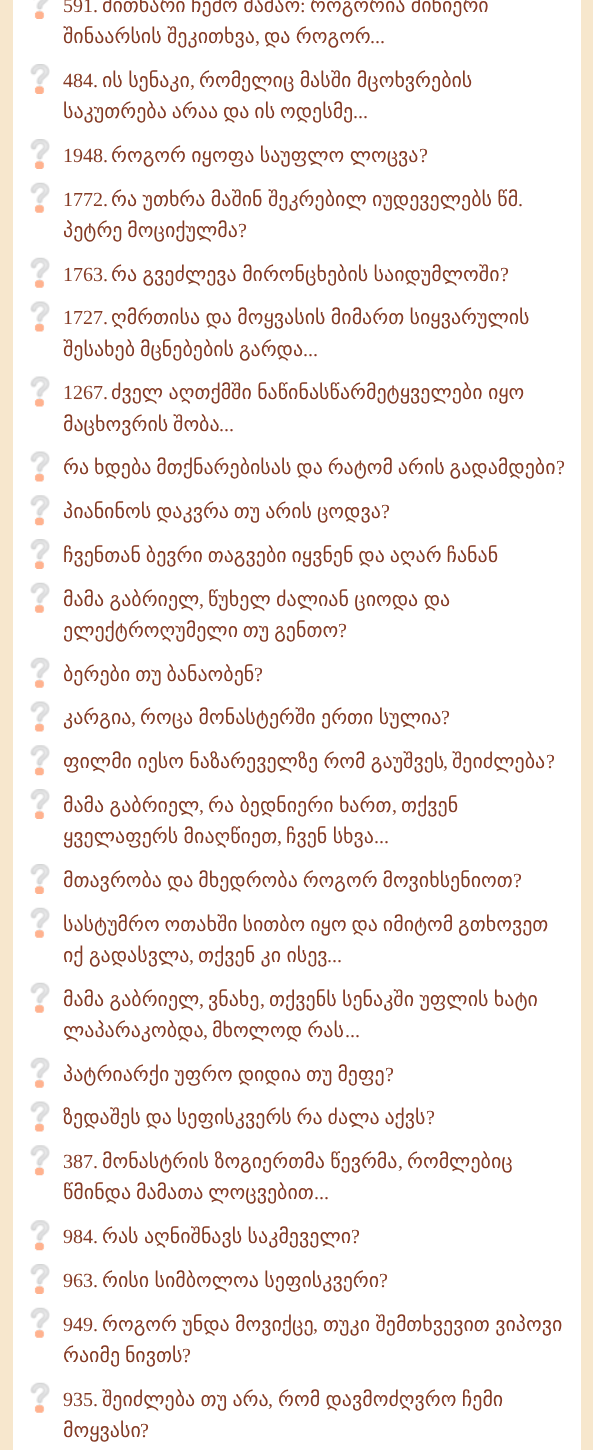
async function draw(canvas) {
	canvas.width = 593;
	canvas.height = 1450;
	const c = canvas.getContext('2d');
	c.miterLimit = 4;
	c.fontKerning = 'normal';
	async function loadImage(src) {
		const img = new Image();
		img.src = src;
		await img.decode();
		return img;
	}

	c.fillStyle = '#f7e7cd';
	c.fillRect(0, 0, 593, 1450);
	c.fillStyle = '#fff';
	c.fillRect(13, 0, 568, 1450);
	c.drawImage(await loadImage('img1.png'), 33, 0, 16, 19);
	c.font = '20px Liberation Serif';
	c.fillStyle = '#843a24';
	c.fillText('591.', 63, 12);
	c.wordSpacing = '-1px';
	c.font = '20px DejaVu Sans';
	c.fillText('მითხარი ჩემო მამაო', 102, 12);
	c.wordSpacing = '0px';
	c.font = '20px Liberation Serif';
	c.fillText(':', 300, 12);
	c.wordSpacing = '-1px';
	c.font = '20px DejaVu Sans';
	c.fillText('როგორია მიწიერი', 310, 12);
	c.fillText('შინაარსის შეკითხვა', 63, 43);
	c.wordSpacing = '0px';
	c.font = '20px Liberation Serif';
	c.fillText(',', 255, 43);
	c.wordSpacing = '-1px';
	c.font = '20px DejaVu Sans';
	c.fillText('და როგორ', 264, 43);
	c.wordSpacing = '0px';
	c.font = '20px Liberation Serif';
	c.fillText('...', 370, 43);
	c.drawImage(await loadImage('img2.png'), 30, 64, 20, 30);
	c.fillText('484.', 63, 87);
	c.wordSpacing = '-1px';
	c.font = '20px DejaVu Sans';
	c.fillText('ის სენაკი', 102, 87);
	c.wordSpacing = '0px';
	c.font = '20px Liberation Serif';
	c.fillText(',', 190, 87);
	c.wordSpacing = '-1px';
	c.font = '20px DejaVu Sans';
	c.fillText('რომელიც მასში მცოხვრების', 199, 87);
	c.wordSpacing = '-1.5px';
	c.fillText('საკუთრება არაა და ის ოდესმე', 63, 118);
	c.wordSpacing = '0px';
	c.font = '20px Liberation Serif';
	c.fillText('...', 353, 118);
	c.drawImage(await loadImage('img2.png'), 30, 139, 20, 30);
	c.fillText('1948.', 63, 162);
	c.wordSpacing = '-1px';
	c.font = '20px DejaVu Sans';
	c.fillText('როგორ იყოფა საუფლო ლოცვა', 111, 162);
	c.wordSpacing = '0px';
	c.font = '20px Liberation Serif';
	c.fillText('?', 419, 162);
	c.drawImage(await loadImage('img3.png'), 30, 182, 20, 31);
	c.fillText('1772.', 63, 206);
	c.wordSpacing = '-1px';
	c.font = '20px DejaVu Sans';
	c.fillText('რა უთხრა მაშინ შეკრებილ იუდეველებს წმ', 111, 206);
	c.wordSpacing = '0px';
	c.font = '20px Liberation Serif';
	c.fillText('.', 518, 206);
	c.wordSpacing = '-1.5px';
	c.font = '20px DejaVu Sans';
	c.fillText('პეტრე მოციქულმა', 63, 237);
	c.wordSpacing = '0px';
	c.font = '20px Liberation Serif';
	c.fillText('?', 238, 237);
	c.drawImage(await loadImage('img3.png'), 30, 257, 20, 31);
	c.fillText('1763.', 63, 281);
	c.wordSpacing = '-1px';
	c.font = '20px DejaVu Sans';
	c.fillText('რა გვეძლევა მირონცხების საიდუმლოში', 111, 281);
	c.wordSpacing = '0px';
	c.font = '20px Liberation Serif';
	c.fillText('?', 500, 281);
	c.drawImage(await loadImage('img4.png'), 30, 301, 20, 31);
	c.fillText('1727.', 63, 324);
	c.wordSpacing = '-1px';
	c.font = '20px DejaVu Sans';
	c.fillText('ღმრთისა და მოყვასის მიმართ სიყვარულის', 111, 324);
	c.wordSpacing = '-1.5px';
	c.fillText('შესახებ მცნებების გარდა', 63, 356);
	c.wordSpacing = '0px';
	c.font = '20px Liberation Serif';
	c.fillText('...', 303, 356);
	c.drawImage(await loadImage('img4.png'), 30, 376, 20, 31);
	c.fillText('1267.', 63, 399);
	c.wordSpacing = '-1px';
	c.font = '20px DejaVu Sans';
	c.fillText('ძველ აღთქმში ნაწინასწარმეტყველები იყო', 111, 399);
	c.wordSpacing = '-1.5px';
	c.fillText('მაცხოვრის შობა', 63, 431);
	c.wordSpacing = '0px';
	c.font = '20px Liberation Serif';
	c.fillText('...', 219, 431);
	c.drawImage(await loadImage('img4.png'), 30, 451, 20, 31);
	c.wordSpacing = '-1.5px';
	c.font = '20px DejaVu Sans';
	c.fillText('რა ხდება მთქნარებისას და რატომ არის გადამდები', 63, 474);
	c.wordSpacing = '0px';
	c.font = '20px Liberation Serif';
	c.fillText('?', 556, 474);
	c.drawImage(await loadImage('img5.png'), 30, 495, 20, 31);
	c.wordSpacing = '-1.5px';
	c.font = '20px DejaVu Sans';
	c.fillText('პიანინოს დაკვრა თუ არის ცოდვა', 63, 518);
	c.wordSpacing = '0px';
	c.font = '20px Liberation Serif';
	c.fillText('?', 381, 518);
	c.drawImage(await loadImage('img2.png'), 30, 539, 20, 30);
	c.wordSpacing = '-1.5px';
	c.font = '20px DejaVu Sans';
	c.fillText('ჩვენთან ბევრი თაგვები იყვნენ და აღარ ჩანან', 63, 562);
	c.drawImage(await loadImage('img3.png'), 30, 582, 20, 31);
	c.wordSpacing = '-1px';
	c.fillText('მამა გაბრიელ', 63, 606);
	c.wordSpacing = '0px';
	c.font = '20px Liberation Serif';
	c.fillText(',', 199, 606);
	c.wordSpacing = '-1px';
	c.font = '20px DejaVu Sans';
	c.fillText('წუხელ ძალიან ციოდა და', 208, 606);
	c.wordSpacing = '-1.5px';
	c.fillText('ელექტროღუმელი თუ გენთო', 63, 637);
	c.wordSpacing = '0px';
	c.font = '20px Liberation Serif';
	c.fillText('?', 338, 637);
	c.drawImage(await loadImage('img3.png'), 30, 657, 20, 31);
	c.wordSpacing = '-1.5px';
	c.font = '20px DejaVu Sans';
	c.fillText('ბერები თუ ბანაობენ', 63, 681);
	c.wordSpacing = '0px';
	c.font = '20px Liberation Serif';
	c.fillText('?', 254, 681);
	c.drawImage(await loadImage('img4.png'), 30, 701, 20, 31);
	c.font = '20px DejaVu Sans';
	c.fillText('კარგია', 63, 724);
	c.font = '20px Liberation Serif';
	c.fillText(',', 131, 724);
	c.wordSpacing = '-1px';
	c.font = '20px DejaVu Sans';
	c.fillText('როცა მონასტერში ერთი სულია', 140, 724);
	c.wordSpacing = '0px';
	c.font = '20px Liberation Serif';
	c.fillText('?', 441, 724);
	c.drawImage(await loadImage('img5.png'), 30, 745, 20, 31);
	c.wordSpacing = '-1px';
	c.font = '20px DejaVu Sans';
	c.fillText('ფილმი იესო ნაზარეველზე რომ გაუშვეს', 63, 768);
	c.wordSpacing = '0px';
	c.font = '20px Liberation Serif';
	c.fillText(',', 443, 768);
	c.font = '20px DejaVu Sans';
	c.fillText('შეიძლება', 452, 768);
	c.font = '20px Liberation Serif';
	c.fillText('?', 546, 768);
	c.drawImage(await loadImage('img2.png'), 30, 789, 20, 30);
	c.wordSpacing = '-1px';
	c.font = '20px DejaVu Sans';
	c.fillText('მამა გაბრიელ', 63, 812);
	c.wordSpacing = '0px';
	c.font = '20px Liberation Serif';
	c.fillText(',', 199, 812);
	c.wordSpacing = '-1px';
	c.font = '20px DejaVu Sans';
	c.fillText('რა ბედნიერი ხართ', 208, 812);
	c.wordSpacing = '0px';
	c.font = '20px Liberation Serif';
	c.fillText(',', 392, 812);
	c.font = '20px DejaVu Sans';
	c.fillText('თქვენ', 401, 812);
	c.wordSpacing = '-1px';
	c.fillText('ყველაფერს მიაღწიეთ', 63, 843);
	c.wordSpacing = '0px';
	c.font = '20px Liberation Serif';
	c.fillText(',', 277, 843);
	c.wordSpacing = '-1px';
	c.font = '20px DejaVu Sans';
	c.fillText('ჩვენ სხვა', 286, 843);
	c.wordSpacing = '0px';
	c.font = '20px Liberation Serif';
	c.fillText('...', 374, 843);
	c.drawImage(await loadImage('img2.png'), 30, 864, 20, 30);
	c.wordSpacing = '-1.5px';
	c.font = '20px DejaVu Sans';
	c.fillText('მთავრობა და მხედრობა როგორ მოვიხსენიოთ', 63, 887);
	c.wordSpacing = '0px';
	c.font = '20px Liberation Serif';
	c.fillText('?', 513, 887);
	c.drawImage(await loadImage('img3.png'), 30, 907, 20, 31);
	c.wordSpacing = '-1.5px';
	c.font = '20px DejaVu Sans';
	c.fillText('სასტუმრო ოთახში სითბო იყო და იმიტომ გთხოვეთ', 63, 931);
	c.wordSpacing = '-1px';
	c.fillText('იქ გადასვლა', 63, 962);
	c.wordSpacing = '0px';
	c.font = '20px Liberation Serif';
	c.fillText(',', 189, 962);
	c.wordSpacing = '-1px';
	c.font = '20px DejaVu Sans';
	c.fillText('თქვენ კი ისევ', 198, 962);
	c.wordSpacing = '0px';
	c.font = '20px Liberation Serif';
	c.fillText('...', 327, 962);
	c.drawImage(await loadImage('img3.png'), 30, 982, 20, 31);
	c.wordSpacing = '-1px';
	c.font = '20px DejaVu Sans';
	c.fillText('მამა გაბრიელ', 63, 1006);
	c.wordSpacing = '0px';
	c.font = '20px Liberation Serif';
	c.fillText(',', 199, 1006);
	c.font = '20px DejaVu Sans';
	c.fillText('ვნახე', 208, 1006);
	c.font = '20px Liberation Serif';
	c.fillText(',', 260, 1006);
	c.wordSpacing = '-1px';
	c.font = '20px DejaVu Sans';
	c.fillText('თქვენს სენაკში უფლის ხატი', 269, 1006);
	c.wordSpacing = '0px';
	c.fillText('ლაპარაკობდა', 63, 1037);
	c.font = '20px Liberation Serif';
	c.fillText(',', 203, 1037);
	c.wordSpacing = '-1px';
	c.font = '20px DejaVu Sans';
	c.fillText('მხოლოდ რას', 212, 1037);
	c.wordSpacing = '0px';
	c.font = '20px Liberation Serif';
	c.fillText('...', 345, 1037);
	c.drawImage(await loadImage('img3.png'), 30, 1057, 20, 31);
	c.wordSpacing = '-1.5px';
	c.font = '20px DejaVu Sans';
	c.fillText('პატრიარქი უფრო დიდია თუ მეფე', 63, 1081);
	c.wordSpacing = '0px';
	c.font = '20px Liberation Serif';
	c.fillText('?', 385, 1081);
	c.drawImage(await loadImage('img6.png'), 30, 1101, 20, 31);
	c.wordSpacing = '-1.5px';
	c.font = '20px DejaVu Sans';
	c.fillText('ზედაშეს და სეფისკვერს რა ძალა აქვს', 63, 1124);
	c.wordSpacing = '0px';
	c.font = '20px Liberation Serif';
	c.fillText('?', 426, 1124);
	c.drawImage(await loadImage('img5.png'), 30, 1145, 20, 31);
	c.fillText('387.', 63, 1168);
	c.wordSpacing = '-1px';
	c.font = '20px DejaVu Sans';
	c.fillText('მონასტრის ზოგიერთმა წევრმა', 102, 1168);
	c.wordSpacing = '0px';
	c.font = '20px Liberation Serif';
	c.fillText(',', 398, 1168);
	c.font = '20px DejaVu Sans';
	c.fillText('რომლებიც', 407, 1168);
	c.wordSpacing = '-1.5px';
	c.fillText('წმინდა მამათა ლოცვებით', 63, 1199);
	c.wordSpacing = '0px';
	c.font = '20px Liberation Serif';
	c.fillText('...', 314, 1199);
	c.drawImage(await loadImage('img5.png'), 30, 1220, 20, 31);
	c.fillText('984.', 63, 1243);
	c.wordSpacing = '-1px';
	c.font = '20px DejaVu Sans';
	c.fillText('რას აღნიშნავს საკმეველი', 102, 1243);
	c.wordSpacing = '0px';
	c.font = '20px Liberation Serif';
	c.fillText('?', 351, 1243);
	c.drawImage(await loadImage('img2.png'), 30, 1264, 20, 30);
	c.fillText('963.', 63, 1287);
	c.wordSpacing = '-1px';
	c.font = '20px DejaVu Sans';
	c.fillText('რისი სიმბოლოა სეფისკვერი', 102, 1287);
	c.wordSpacing = '0px';
	c.font = '20px Liberation Serif';
	c.fillText('?', 379, 1287);
	c.drawImage(await loadImage('img7.png'), 30, 1307, 20, 31);
	c.fillText('949.', 63, 1331);
	c.wordSpacing = '-1px';
	c.font = '20px DejaVu Sans';
	c.fillText('როგორ უნდა მოვიქცე', 102, 1331);
	c.wordSpacing = '0px';
	c.font = '20px Liberation Serif';
	c.fillText(',', 313, 1331);
	c.wordSpacing = '-1px';
	c.font = '20px DejaVu Sans';
	c.fillText('თუკი შემთხვევით ვიპოვი', 323, 1331);
	c.wordSpacing = '-1.5px';
	c.fillText('რაიმე ნივთს', 63, 1362);
	c.wordSpacing = '0px';
	c.font = '20px Liberation Serif';
	c.fillText('?', 182, 1362);
	c.drawImage(await loadImage('img3.png'), 30, 1382, 20, 31);
	c.fillText('935.', 63, 1406);
	c.wordSpacing = '-1px';
	c.font = '20px DejaVu Sans';
	c.fillText('შეიძლება თუ არა', 102, 1406);
	c.wordSpacing = '0px';
	c.font = '20px Liberation Serif';
	c.fillText(',', 268, 1406);
	c.wordSpacing = '-1px';
	c.font = '20px DejaVu Sans';
	c.fillText('რომ დავმოძღვრო ჩემი', 278, 1406);
	c.wordSpacing = '0px';
	c.fillText('მოყვასი', 63, 1437);
	c.font = '20px Liberation Serif';
	c.fillText('?', 140, 1437);
}

draw(document.querySelector('canvas'));
